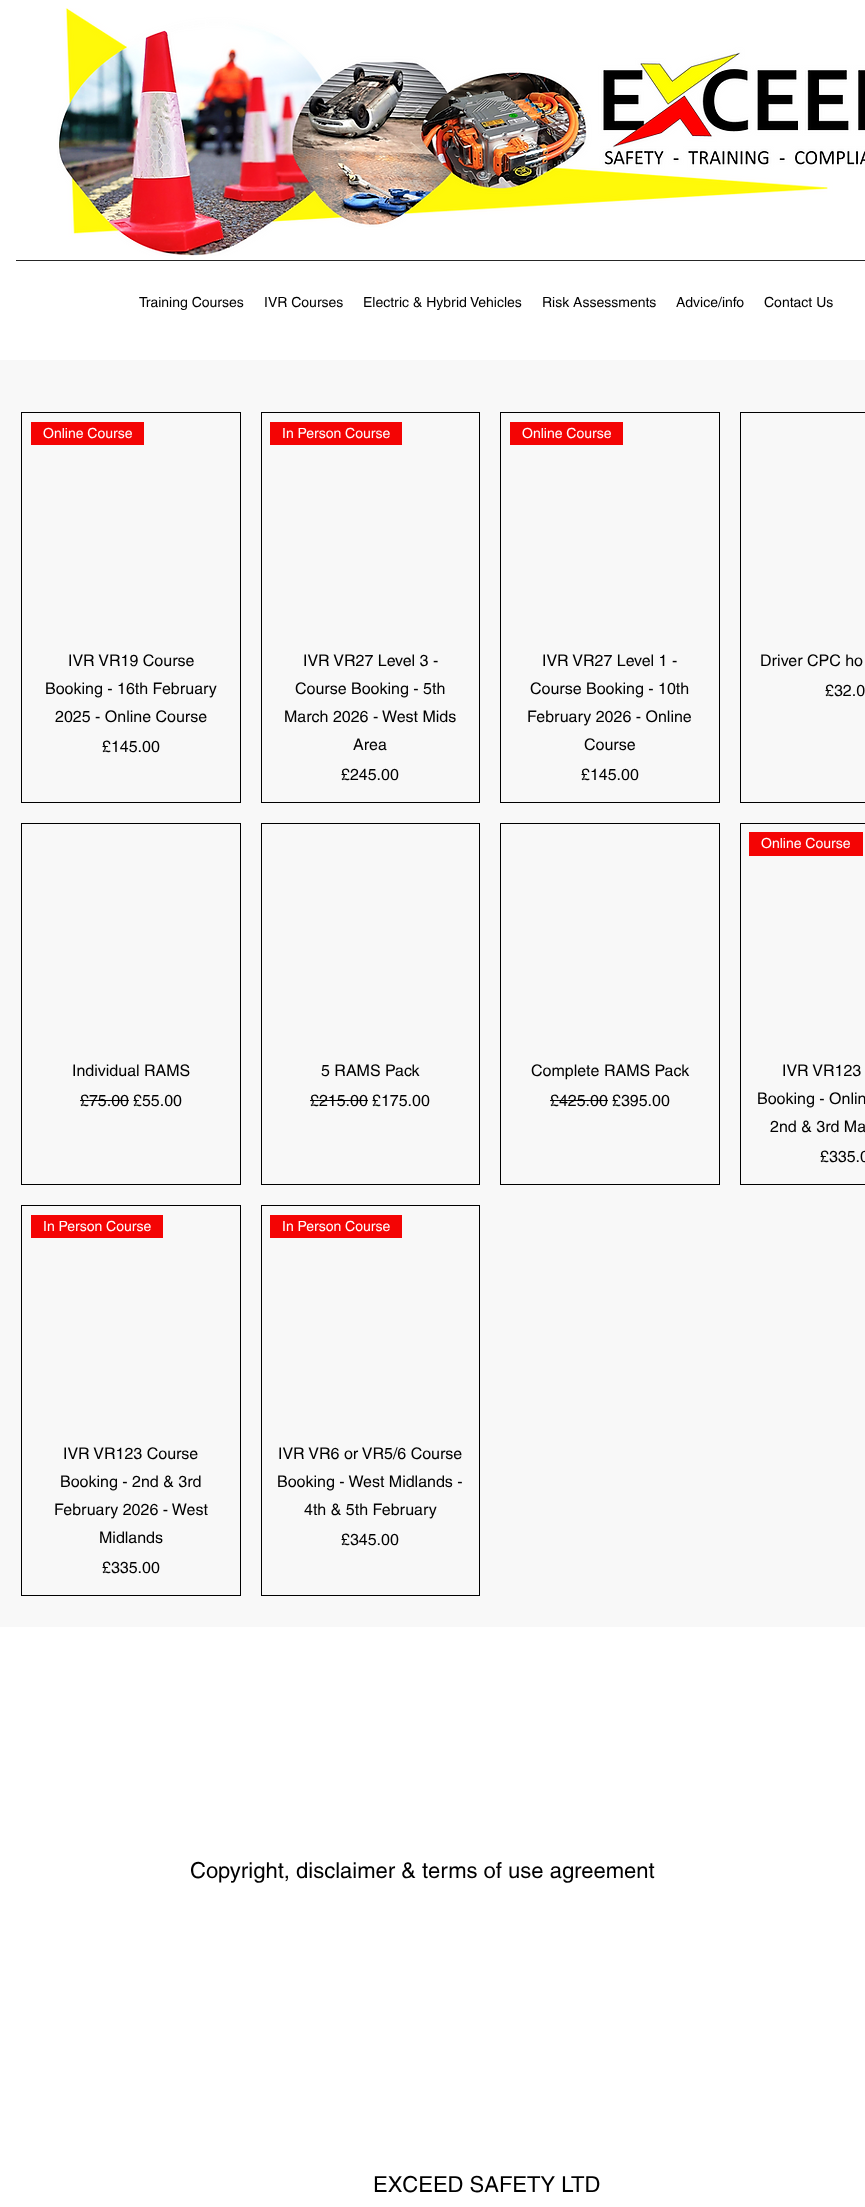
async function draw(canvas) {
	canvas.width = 865;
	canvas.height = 2207;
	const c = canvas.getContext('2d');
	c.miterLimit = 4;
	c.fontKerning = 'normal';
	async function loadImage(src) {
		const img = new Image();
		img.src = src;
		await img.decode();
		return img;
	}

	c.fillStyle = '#fff';
	c.fillRect(0, 0, 865, 2207);
	c.drawImage(await loadImage('img1.png'), 57, 8, 808, 248);
	c.fillStyle = '#262626';
	c.fillRect(16, 260, 849, 1);
	c.font = '14px helvetica';
	c.fillStyle = '#000';
	for (const [text, x, y] of [
		['Training Courses', 139, 307],
		['IVR Courses', 264, 307],
		['Electric & Hybrid Vehicles', 363, 307],
		['Risk Assessments', 542, 307],
		['Advice/info', 676, 307],
		['Contact Us', 764, 307],
	]) {
		c.fillText(text, x, y);
	}
	c.fillStyle = '#f8f8f8';
	c.fillRect(0, 360, 865, 1267);
	c.strokeStyle = '#000';
	c.strokeRect(21.5, 412.5, 219, 390);
	c.fillStyle = '#f40404';
	c.fillRect(31, 422, 113, 23);
	c.fillStyle = '#fff';
	c.fillText('Online Course', 43, 438);
	c.font = '16px helvetica';
	c.fillStyle = '#000';
	for (const [text, x, y] of [
		['IVR VR19 Course', 68, 666],
		['Booking - 16th February', 45, 694],
		['2025 - Online Course', 55, 722],
		['£145.00', 102, 752],
	]) {
		c.fillText(text, x, y);
	}
	c.strokeRect(261.5, 412.5, 218, 390);
	c.fillStyle = '#f40404';
	c.fillRect(270, 422, 132, 23);
	c.font = '14px helvetica';
	c.fillStyle = '#fff';
	c.fillText('In Person Course', 282, 438);
	c.font = '16px helvetica';
	c.fillStyle = '#000';
	for (const [text, x, y] of [
		['IVR VR27 Level 3 -', 303, 666],
		['Course Booking - 5th', 295, 694],
		['March 2026 - West Mids', 284, 722],
		['Area', 353, 750],
		['£245.00', 341, 780],
	]) {
		c.fillText(text, x, y);
	}
	c.strokeRect(500.5, 412.5, 219, 390);
	c.fillStyle = '#f40404';
	c.fillRect(510, 422, 113, 23);
	c.font = '14px helvetica';
	c.fillStyle = '#fff';
	c.fillText('Online Course', 522, 438);
	c.font = '16px helvetica';
	c.fillStyle = '#000';
	for (const [text, x, y] of [
		['IVR VR27 Level 1 -', 542, 666],
		['Course Booking - 10th', 530, 694],
		['February 2026 - Online', 527, 722],
		['Course', 584, 750],
		['£145.00', 581, 780],
	]) {
		c.fillText(text, x, y);
	}
	c.strokeRect(740.5, 412.5, 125, 390);
	c.fillText('Driver CPC ho', 760, 666);
	c.fillText('£32.0', 825, 696);
	c.strokeRect(21.5, 823.5, 219, 361);
	c.fillText('Individual RAMS', 72, 1076);
	c.fillText('£75.00', 80, 1106);
	c.fillRect(80, 1100, 49, 1);
	c.fillText('£55.00', 133, 1106);
	c.strokeRect(261.5, 823.5, 218, 361);
	c.fillText('5 RAMS Pack', 321, 1076);
	c.fillText('£215.00', 310, 1106);
	c.fillRect(310, 1100, 58, 1);
	c.fillText('£175.00', 372, 1106);
	c.strokeRect(500.5, 823.5, 219, 361);
	c.fillText('Complete RAMS Pack', 531, 1076);
	c.fillText('£425.00', 550, 1106);
	c.fillRect(550, 1100, 58, 1);
	c.fillText('£395.00', 612, 1106);
	c.strokeRect(740.5, 823.5, 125, 361);
	c.fillStyle = '#f40404';
	c.fillRect(749, 832, 114, 24);
	c.font = '14px helvetica';
	c.fillStyle = '#fff';
	c.fillText('Online Course', 761, 848);
	c.font = '16px helvetica';
	c.fillStyle = '#000';
	for (const [text, x, y] of [
		['IVR VR123', 782, 1076],
		['Booking - Onlin', 757, 1104],
		['2nd & 3rd Ma', 770, 1132],
		['£335.0', 820, 1162],
	]) {
		c.fillText(text, x, y);
	}
	c.strokeRect(21.5, 1205.5, 219, 390);
	c.fillStyle = '#f40404';
	c.fillRect(31, 1215, 132, 23);
	c.font = '14px helvetica';
	c.fillStyle = '#fff';
	c.fillText('In Person Course', 43, 1231);
	c.font = '16px helvetica';
	c.fillStyle = '#000';
	for (const [text, x, y] of [
		['IVR VR123 Course', 63, 1459],
		['Booking - 2nd & 3rd', 60, 1487],
		['February 2026 - West', 54, 1515],
		['Midlands', 99, 1543],
		['£335.00', 102, 1573],
	]) {
		c.fillText(text, x, y);
	}
	c.strokeRect(261.5, 1205.5, 218, 390);
	c.fillStyle = '#f40404';
	c.fillRect(270, 1215, 132, 23);
	c.font = '14px helvetica';
	c.fillStyle = '#fff';
	c.fillText('In Person Course', 282, 1231);
	c.font = '16px helvetica';
	c.fillStyle = '#000';
	for (const [text, x, y] of [
		['IVR VR6 or VR5/6 Course', 278, 1459],
		['Booking - West Midlands -', 277, 1487],
		['4th & 5th February', 304, 1515],
		['£345.00', 341, 1545],
	]) {
		c.fillText(text, x, y);
	}
	c.font = '22px helvetica';
	c.fillText('Copyright, disclaimer & terms of use agreement', 190, 1878);
	c.fillText('EXCEED SAFETY LTD', 373, 2192);
}

draw(document.querySelector('canvas'));
